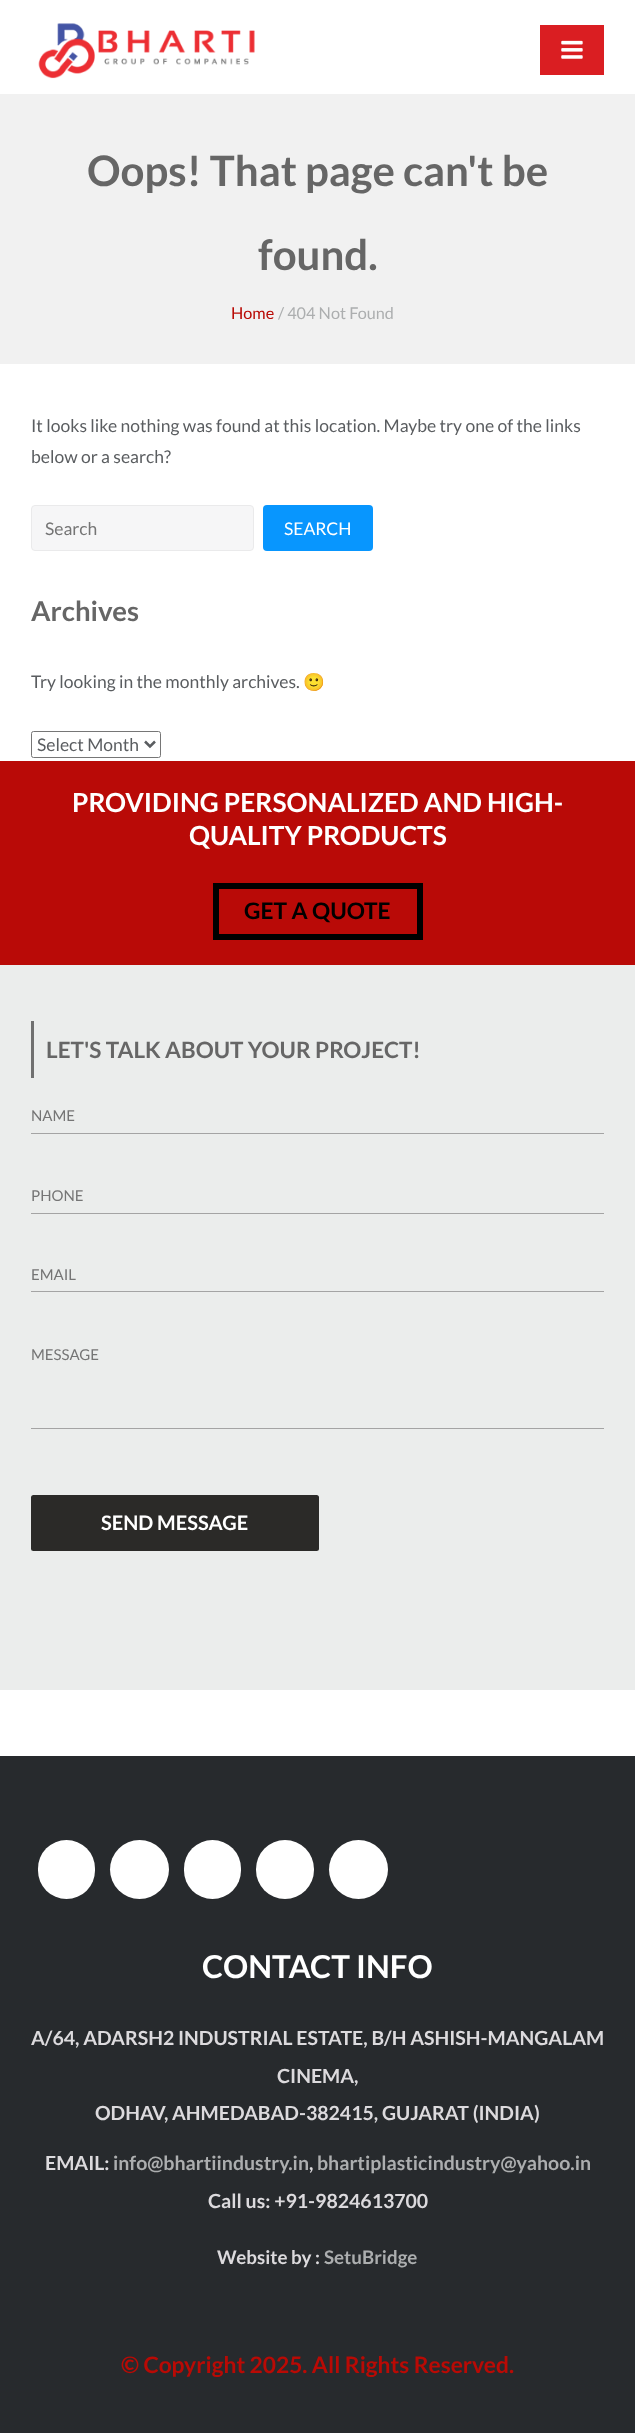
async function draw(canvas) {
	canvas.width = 635;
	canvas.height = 2433;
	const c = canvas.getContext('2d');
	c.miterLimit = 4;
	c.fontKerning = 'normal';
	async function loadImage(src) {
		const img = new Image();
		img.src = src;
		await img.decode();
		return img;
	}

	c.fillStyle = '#fff';
	c.fillRect(0, 0, 635, 2433);
	c.drawImage(await loadImage('img1.png'), 38, 23, 217, 56);
	c.fillStyle = '#da1e22';
	c.fillRect(540, 25, 64, 50);
	c.drawImage(await loadImage('img2.png'), 561, 40, 22, 19);
	c.fillStyle = '#f1f1f1';
	c.fillRect(0, 94, 635, 270);
	c.font = 'bold 42px Lato';
	c.fillStyle = '#666';
	c.fillText('Oops! That page can\'t be', 87, 186);
	c.fillText('found.', 258, 270);
	c.font = '16.25px Lato';
	c.fillStyle = '#b90a05';
	c.fillText('Home', 231, 319);
	c.fillStyle = '#acaeaf';
	c.fillText('/ 404 Not Found', 278, 319);
	c.font = '17.5px Lato';
	c.fillStyle = '#5a5d60';
	c.fillText('It looks like nothing was found at this location. Maybe try one of the links', 31, 432);
	c.fillText('below or a search?', 31, 463);
	c.fillStyle = '#f6f6f7';
	c.beginPath();
	c.roundRect(31.5, 505.5, 222, 45, 3.5);
	c.fill();
	c.strokeStyle = '#eaeaeb';
	c.stroke();
	c.fillStyle = '#757575';
	c.fillText('Search', 45, 535);
	c.fillStyle = '#0896fe';
	c.beginPath();
	c.roundRect(263, 505, 110, 46, 4);
	c.fill();
	c.fillStyle = '#fff';
	c.fillText('SEARCH', 284, 535);
	c.font = 'bold 27.5px Lato';
	c.fillStyle = '#666';
	c.fillText('Archives', 31, 621);
	c.font = '17.5px Lato';
	c.fillStyle = '#5a5d60';
	c.fillText('Try looking in the monthly archives.', 31, 688);
	c.font = '17.5px Noto Color Emoji';
	c.fillText('🙂', 303, 688);
	c.beginPath();
	c.roundRect(31.5, 731.5, 129, 26, 2);
	c.strokeStyle = '#767676';
	c.stroke();
	c.beginPath();
	c.moveTo(145, 741.5);
	c.lineTo(150, 746.5);
	c.lineTo(155, 741.5);
	c.strokeStyle = '#5a5d60';
	c.lineWidth = 2.5;
	c.stroke();
	c.font = '17.5px Lato';
	c.fillText('Select Month', 37, 751);
	c.fillStyle = '#b90a07';
	c.fillRect(0, 761, 635, 204);
	c.font = 'bold 26.25px Lato';
	c.fillStyle = '#fff';
	c.fillText('PROVIDING PERSONALIZED AND HIGH-', 72, 812);
	c.fillText('QUALITY PRODUCTS', 189, 845);
	c.strokeStyle = '#000';
	c.lineWidth = 6;
	c.strokeRect(216, 886, 204, 51);
	c.font = 'bold 22.75px Lato';
	c.fillStyle = '#000';
	c.fillText('GET A QUOTE', 244, 919);
	c.fillStyle = '#ebedec';
	c.fillRect(0, 965, 635, 725);
	c.fillStyle = '#707070';
	c.fillRect(31, 1021, 3, 57);
	c.font = 'bold 22.5px Lato';
	c.fillStyle = '#666';
	c.fillText('LET\'S TALK ABOUT YOUR PROJECT!', 46, 1058);
	c.fillStyle = '#a4a4a4';
	c.fillRect(31, 1133, 573, 1);
	c.font = '15px Lato';
	c.fillStyle = '#757575';
	c.fillText('NAME', 31, 1121);
	c.fillStyle = '#a4a4a4';
	c.fillRect(31, 1213, 573, 1);
	c.fillStyle = '#757575';
	c.fillText('PHONE', 31, 1201);
	c.fillStyle = '#a4a4a4';
	c.fillRect(31, 1291, 573, 1);
	c.fillStyle = '#757575';
	c.fillText('EMAIL', 31, 1280);
	c.fillStyle = '#a4a4a4';
	c.fillRect(31, 1428, 573, 1);
	c.fillStyle = '#757575';
	c.fillText('MESSAGE', 31, 1360);
	c.fillStyle = '#2b2a28';
	c.beginPath();
	c.roundRect(31, 1495, 288, 56, 2.5);
	c.fill();
	c.font = 'bold 20px Lato';
	c.fillStyle = '#fff';
	c.fillText('SEND MESSAGE', 101, 1530);
	c.fillStyle = '#272a2d';
	c.fillRect(0, 1756, 635, 677);
	c.fillStyle = '#fff';
	c.beginPath();
	c.roundRect(38, 1840, 57, 59, 28.5);
	c.fill();
	c.beginPath();
	c.arc(139.5, 1869.5, 29.5, 0, 2 * Math.PI);
	c.fill();
	c.beginPath();
	c.roundRect(184, 1840, 57, 59, 28.5);
	c.fill();
	c.beginPath();
	c.roundRect(256, 1840, 58, 59, 29);
	c.fill();
	c.beginPath();
	c.arc(358.5, 1869.5, 29.5, 0, 2 * Math.PI);
	c.fill();
	c.font = 'bold 31.5px Lato';
	c.fillText('CONTACT INFO', 202, 1978);
	c.font = 'bold 19.5px Lato';
	c.fillStyle = '#dcdadd';
	for (const [text, x, y] of [
		['A/64, ADARSH2 INDUSTRIAL ESTATE, B/H ASHISH-MANGALAM', 31, 2045],
		['CINEMA,', 277, 2083],
		['ODHAV,', 95, 2120],
		['AHMEDABAD-382415, GUJARAT (INDIA)', 172, 2120],
		['EMAIL:', 45, 2170],
	]) {
		c.fillText(text, x, y);
	}
	c.fillStyle = '#acaeaf';
	c.fillText('info@bhartiindustry.in', 113, 2170);
	c.fillStyle = '#dcdadd';
	c.fillText(',', 309, 2170);
	c.fillStyle = '#acaeaf';
	c.fillText('bhartiplasticindustry@yahoo.in', 317, 2170);
	c.fillStyle = '#dcdadd';
	c.fillText('Call us: +91-9824613700', 208, 2208);
	c.font = 'bold 18.75px Lato';
	c.fillText('Website by :', 217, 2264);
	c.fillStyle = '#acaeaf';
	c.fillText('SetuBridge', 324, 2264);
	c.font = 'bold 22.75px Lato';
	c.fillStyle = '#b90a05';
	c.fillText('© Copyright 2025. All Rights Reserved.', 121, 2373);
}

draw(document.querySelector('canvas'));
